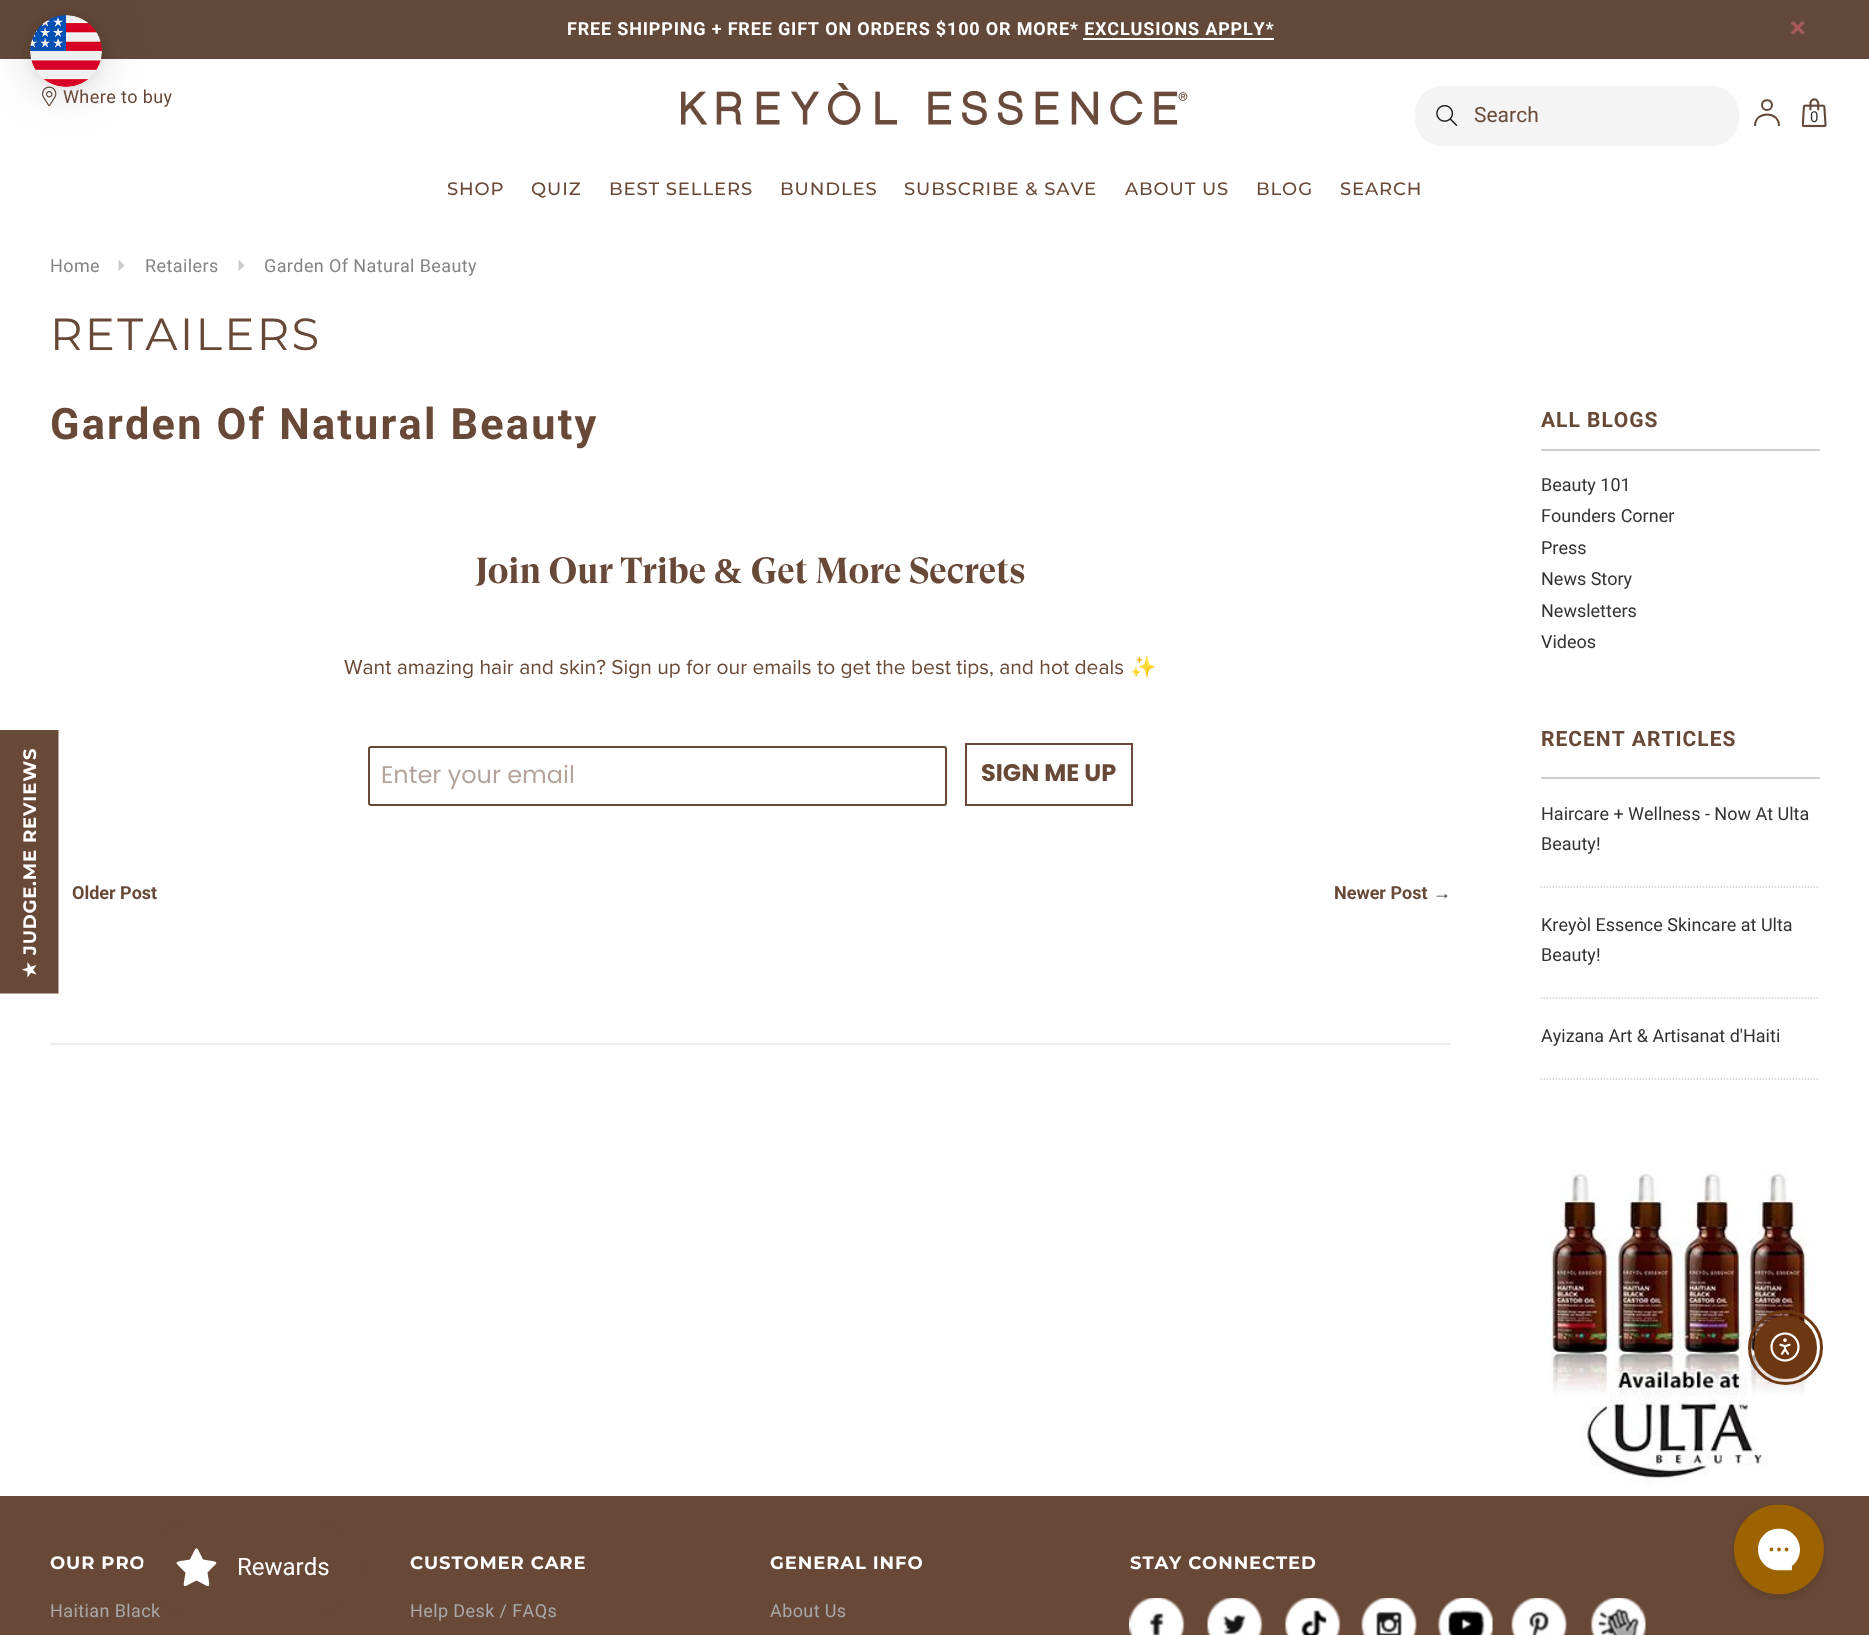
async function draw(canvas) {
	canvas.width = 1869;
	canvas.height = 1635;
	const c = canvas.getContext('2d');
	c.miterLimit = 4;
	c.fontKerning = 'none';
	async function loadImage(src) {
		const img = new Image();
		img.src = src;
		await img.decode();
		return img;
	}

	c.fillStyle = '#fff';
	c.fillRect(0, 0, 1869, 1635);
	c.fillStyle = '#634939';
	c.fillRect(0, 0, 1869, 59);
	c.drawImage(await loadImage('img3.png'), 42, 86, 15, 21);
	c.fillStyle = '#00000029';
	c.filter = 'blur(24px)';
	c.beginPath();
	c.roundRect(30, 18, 72, 72, 36);
	c.fill();
	c.filter = 'none';
	c.fillStyle = '#0000000f';
	c.filter = 'blur(4.5px)';
	c.beginPath();
	c.roundRect(30, 17, 72, 72, 36);
	c.fill();
	c.filter = 'none';
	c.drawImage(await loadImage('img1.png'), 30, 15, 72, 72);
	c.fillStyle = '#684836';
	c.fillRect(3, 733, 53, 258);
	c.beginPath();
	c.moveTo(1.5, 992);
	c.lineTo(1.5, 731.5);
	c.lineTo(57, 731.5);
	c.lineTo(57, 992);
	c.closePath();
	c.strokeStyle = '#684836';
	c.lineWidth = 3;
	c.stroke();
	c.letterSpacing = '0.9px';
	c.font = 'bold 18px Montserrat';
	c.fillStyle = '#fff';
	c.save();
	c.translate(36, 955);
	c.rotate(-90 * Math.PI / 180);
	c.fillText('JUDGE.ME REVIEWS', 0, 0);
	c.restore();
	c.font = 'bold 18px DejaVu Sans';
	c.save();
	c.translate(36, 978);
	c.rotate(-90 * Math.PI / 180);
	c.fillText('★', 0, 0);
	c.restore();
	c.letterSpacing = '0.83px';
	c.font = 'bold 18px Roboto';
	c.fillText('FREE SHIPPING + FREE GIFT ON ORDERS $100 OR MORE* EXCLUSIONS APPLY*', 567, 35);
	c.fillRect(1083, 38, 191, 2);
	c.drawImage(await loadImage('img2.png'), 1791, 21, 14, 14);
	c.letterSpacing = '0.4px';
	c.font = '18px Roboto';
	c.fillStyle = '#684836';
	c.fillText('Where to buy', 63, 103);
	c.drawImage(await loadImage('img4.png'), 681, 83, 507, 42);
	c.fillStyle = '#f4f4f4';
	c.beginPath();
	c.roundRect(1415, 86, 324, 60, 27);
	c.fill();
	c.drawImage(await loadImage('img5.png'), 1436, 105, 22, 21);
	c.letterSpacing = '0px';
	c.font = '21px Roboto';
	c.fillStyle = '#684836';
	c.fillText('Search', 1474, 122);
	c.beginPath();
	c.moveTo(1772, 105);
	c.bezierCurveTo(1772, 111.5, 1762, 111.5, 1762, 105);
	c.bezierCurveTo(1762, 98.5, 1772, 98.5, 1772, 105);
	c.closePath();
	c.strokeStyle = '#634939';
	c.lineWidth = 2;
	c.stroke();
	c.beginPath();
	c.moveTo(1779, 126);
	c.bezierCurveTo(1779, 110.5, 1755, 110.5, 1755, 126);
	c.lineJoin = 'round';
	c.stroke();
	c.drawImage(await loadImage('img6.png'), 1802, 98, 25, 30);
	c.font = '15px Roboto';
	c.fillStyle = '#323232';
	c.fillText('0', 1810, 122);
	c.letterSpacing = '0.9px';
	c.font = '500 18px Montserrat';
	c.fillStyle = '#684836';
	for (const [text, x, y] of [
		['SHOP', 447, 195],
		['QUIZ', 531, 195],
		['BEST SELLERS', 609, 195],
		['BUNDLES', 780, 195],
		['SUBSCRIBE & SAVE', 904, 195],
		['ABOUT US', 1125, 195],
		['BLOG', 1256, 195],
		['SEARCH', 1340, 195],
	]) {
		c.fillText(text, x, y);
	}
	c.letterSpacing = '0.4px';
	c.font = '18px Roboto';
	c.fillStyle = '#848484';
	c.fillText('Home', 50, 272);
	c.fillStyle = '#cbcbcb';
	c.beginPath();
	c.moveTo(118.5, 271.5);
	c.lineTo(118.5, 259.5);
	c.lineTo(124.5, 265.5);
	c.closePath();
	c.fill();
	c.fillStyle = '#848484';
	c.fillText('Retailers', 145, 272);
	c.fillStyle = '#cbcbcb';
	c.beginPath();
	c.moveTo(238.5, 271.5);
	c.lineTo(238.5, 259.5);
	c.lineTo(244.5, 265.5);
	c.closePath();
	c.fill();
	c.fillStyle = '#848484';
	c.fillText('Garden Of Natural Beauty', 264, 272);
	c.letterSpacing = '2.25px';
	c.font = '45px Montserrat';
	c.fillStyle = '#684836';
	c.fillText('RETAILERS', 50, 350);
	c.letterSpacing = '2.2px';
	c.font = 'bold 43.25px Roboto';
	c.fillText('Garden Of Natural Beauty', 50, 439);
	c.letterSpacing = '0px';
	c.font = 'bold 36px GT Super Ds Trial';
	c.fillText('Join Our Tribe', 475, 583);
	c.font = 'bold 36px Liberation Serif';
	c.fillText('&', 713, 583);
	c.font = 'bold 36px GT Super Ds Trial';
	c.fillText('Get More Secrets', 751, 583);
	c.font = '21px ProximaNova';
	c.fillText('Want amazing hair and skin? Sign up for our emails to get the best tips, and hot deals', 344, 674);
	c.font = '21px Noto Color Emoji';
	c.fillText('✨', 1130, 674);
	c.beginPath();
	c.roundRect(369, 747, 577, 58, 2);
	c.strokeStyle = '#684836';
	c.lineJoin = 'miter';
	c.stroke();
	c.font = '24px Poppins';
	c.fillStyle = '#b4a49b';
	c.fillText('Enter your email', 381, 783);
	c.strokeRect(966, 744, 166, 61);
	c.font = 'bold 24px Poppins';
	c.fillStyle = '#684836';
	c.fillText('SIGN ME UP', 981, 781);
	c.font = 'bold 18px Roboto';
	c.fillText('Older Post', 72, 899);
	c.fillText('Newer Post', 1334, 899);
	c.font = 'bold 18px Liberation Serif';
	c.fillStyle = '#323232';
	c.fillText('→', 1433, 899);
	c.fillStyle = '#eee';
	c.fillRect(50, 1043, 1401, 2);
	c.fillStyle = '#d0d0d0';
	c.fillRect(1541, 449, 279, 2);
	c.letterSpacing = '1px';
	c.font = 'bold 21px Roboto';
	c.fillStyle = '#684836';
	c.fillText('ALL BLOGS', 1541, 427);
	c.letterSpacing = '0px';
	c.font = '18px Roboto';
	c.fillStyle = '#323232';
	for (const [text, x, y] of [
		['Beauty 101', 1541, 491],
		['Founders Corner', 1541, 522],
		['Press', 1541, 554],
		['News Story', 1541, 585],
		['Newsletters', 1541, 617],
		['Videos', 1541, 648],
	]) {
		c.fillText(text, x, y);
	}
	c.fillStyle = '#d0d0d0';
	c.fillRect(1541, 777, 279, 2);
	c.letterSpacing = '1px';
	c.font = 'bold 21px Roboto';
	c.fillStyle = '#684836';
	c.fillText('RECENT ARTICLES', 1541, 746);
	c.beginPath();
	c.moveTo(1540.5, 887);
	c.lineTo(1819.5, 887);
	c.strokeStyle = '#d0d0d0';
	c.lineWidth = 1.5;
	c.setLineDash([1.5, 1.5]);
	c.stroke();
	c.letterSpacing = '0px';
	c.font = '18px Roboto';
	c.fillStyle = '#323232';
	c.fillText('Haircare + Wellness - Now At Ulta', 1541, 820);
	c.fillText('Beauty!', 1541, 850);
	c.beginPath();
	c.moveTo(1540.5, 998);
	c.lineTo(1819.5, 998);
	c.stroke();
	c.fillText('Kreyòl Essence Skincare at Ulta', 1541, 931);
	c.fillText('Beauty!', 1541, 961);
	c.beginPath();
	c.moveTo(1540.5, 1079);
	c.lineTo(1819.5, 1079);
	c.stroke();
	c.fillText('Ayizana Art & Artisanat d\'Haiti', 1541, 1042);
	c.drawImage(await loadImage('img7.png'), 1546, 1170, 271, 315);
	c.fillStyle = '#684836';
	c.fillRect(0, 1496, 1869, 139);
	c.letterSpacing = '0.9px';
	c.font = 'bold 18px Montserrat';
	c.fillStyle = '#fff';
	c.fillText('OUR PRO', 50, 1569);
	c.letterSpacing = '0.4px';
	c.font = '18px Roboto';
	c.fillStyle = '#a9a9a9';
	c.fillText('Haitian Black', 50, 1617);
	c.letterSpacing = '0.9px';
	c.font = 'bold 18px Montserrat';
	c.fillStyle = '#fff';
	c.fillText('CUSTOMER CARE', 410, 1569);
	c.letterSpacing = '0.4px';
	c.font = '18px Roboto';
	c.fillStyle = '#a9a9a9';
	c.fillText('Help Desk / FAQs', 410, 1617);
	c.letterSpacing = '0.9px';
	c.font = 'bold 18px Montserrat';
	c.fillStyle = '#fff';
	c.fillText('GENERAL INFO', 770, 1569);
	c.letterSpacing = '0.4px';
	c.font = '18px Roboto';
	c.fillStyle = '#a9a9a9';
	c.fillText('About Us', 770, 1617);
	c.letterSpacing = '0.9px';
	c.font = 'bold 18px Montserrat';
	c.fillStyle = '#fff';
	c.fillText('STAY CONNECTED', 1130, 1569);
	c.drawImage(await loadImage('img8.png'), 1129, 1598, 56, 37);
	c.drawImage(await loadImage('img9.png'), 1207, 1598, 56, 37);
	c.drawImage(await loadImage('img10.png'), 1285, 1598, 56, 37);
	c.drawImage(await loadImage('img11.png'), 1361, 1598, 56, 37);
	c.drawImage(await loadImage('img12.png'), 1437, 1598, 56, 37);
	c.drawImage(await loadImage('img13.png'), 1511, 1598, 56, 37);
	c.drawImage(await loadImage('img14.png'), 1590, 1598, 56, 37);
	c.beginPath();
	c.arc(1785.5, 1347.5, 36, 0, 2 * Math.PI);
	c.strokeStyle = '#6d3712';
	c.lineWidth = 3;
	c.setLineDash([]);
	c.stroke();
	c.fillStyle = '#6d3712';
	c.beginPath();
	c.arc(1785.5, 1347.5, 30.5, 0, 2 * Math.PI);
	c.fill();
	c.lineWidth = 2;
	c.stroke();
	c.drawImage(await loadImage('img15.png'), 1770, 1332, 30, 30);
	c.fillStyle = '#684836';
	c.beginPath();
	c.roundRect(143, 1523, 219, 90, 45);
	c.fill();
	c.fillStyle = '#fff';
	c.beginPath();
	c.moveTo(196.5, 1580.5);
	c.bezierCurveTo(181, 1588.5, 183, 1589.5, 185.5, 1572.5);
	c.bezierCurveTo(173.5, 1560.5, 172.5, 1562.5, 190, 1559.5);
	c.bezierCurveTo(197.5, 1544.5, 195.5, 1544.5, 203, 1559.5);
	c.bezierCurveTo(220.5, 1562.5, 219.5, 1560.5, 207.5, 1572.5);
	c.bezierCurveTo(210, 1589.5, 212, 1588.5, 196.5, 1580.5);
	c.closePath();
	c.fill();
	c.letterSpacing = '0px';
	c.font = '24px Roboto';
	c.fillText('Rewards', 237, 1575);
	c.drawImage(await loadImage('img16.png'), 1732, 1504, 94, 96);
}

draw(document.querySelector('canvas'));
